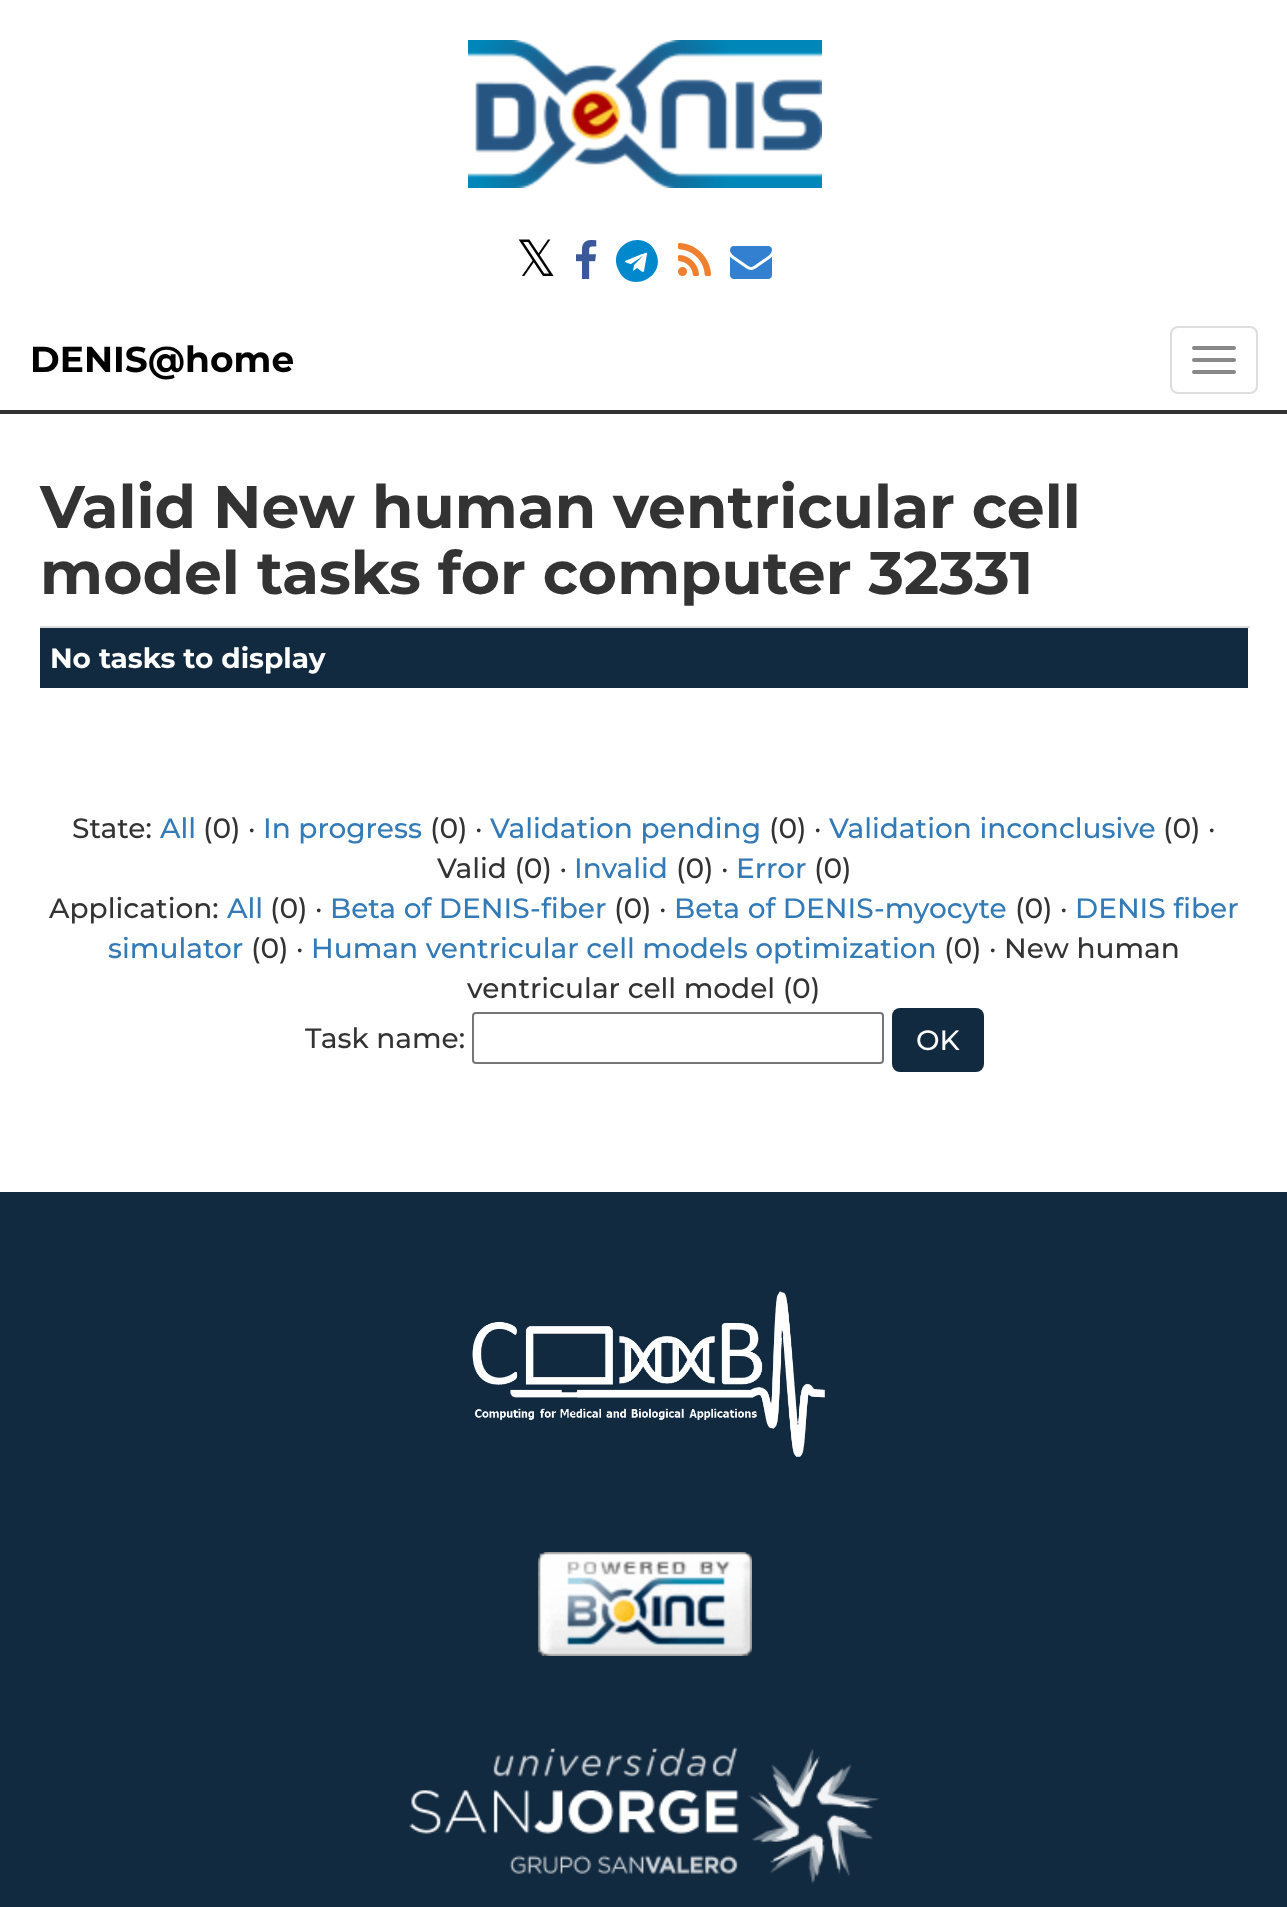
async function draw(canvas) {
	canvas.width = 1287;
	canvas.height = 1907;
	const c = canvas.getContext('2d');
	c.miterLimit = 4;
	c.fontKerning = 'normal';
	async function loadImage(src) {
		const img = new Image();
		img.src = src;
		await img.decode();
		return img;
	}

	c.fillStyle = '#fff';
	c.fillRect(0, 0, 1287, 1907);
	c.drawImage(await loadImage('img1.png'), 468, 40, 354, 148);
	c.font = '50px DejaVu Sans';
	c.fillStyle = '#000';
	c.fillText('𝕏', 516, 276);
	c.drawImage(await loadImage('img2.png'), 576, 240, 21, 39);
	c.fillStyle = '#08c';
	c.beginPath();
	c.moveTo(644, 271);
	c.lineTo(647, 254);
	c.bezierCurveTo(648, 251, 643, 254, 642, 254);
	c.lineTo(625, 261);
	c.bezierCurveTo(624, 262, 630, 264, 631, 264);
	c.lineTo(643, 256);
	c.bezierCurveTo(643, 256, 644, 256, 643, 256);
	c.lineTo(634, 265);
	c.lineTo(633, 271);
	c.lineTo(637, 268);
	c.bezierCurveTo(638, 268, 643, 274, 644, 271);
	c.closePath();
	c.moveTo(656, 253);
	c.bezierCurveTo(667, 278, 628, 295, 618, 269);
	c.bezierCurveTo(607, 244, 645, 227, 656, 253);
	c.closePath();
	c.fill();
	c.drawImage(await loadImage('img3.png'), 678, 243, 33, 33);
	c.drawImage(await loadImage('img4.png'), 730, 246, 42, 33);
	c.fillStyle = '#333';
	c.fillRect(0, 410, 1287, 4);
	c.font = 'bold 36px Montserrat';
	c.fillStyle = '#000';
	c.fillText('DENIS@home', 30, 372);
	c.beginPath();
	c.roundRect(1171, 327, 86, 66, 7);
	c.strokeStyle = '#ddd';
	c.lineWidth = 2;
	c.stroke();
	c.fillStyle = '#888';
	c.beginPath();
	c.roundRect(1192, 346, 44, 4, 2);
	c.fill();
	c.beginPath();
	c.roundRect(1192, 358, 44, 4, 2);
	c.fill();
	c.beginPath();
	c.roundRect(1192, 370, 44, 4, 2);
	c.fill();
	c.font = 'bold 60px Montserrat';
	c.fillStyle = '#333';
	c.fillText('Valid New human ventricular cell', 40, 528);
	c.fillText('model tasks for computer 32331', 40, 594);
	c.fillStyle = '#122a40';
	c.fillRect(40, 628, 1208, 60);
	c.fillStyle = '#ddd';
	c.fillRect(40, 626, 1210, 2);
	c.font = 'bold 28px Montserrat';
	c.fillStyle = '#fff';
	c.fillText('No tasks to display', 50, 668);
	c.font = '500 28px Montserrat';
	c.fillStyle = '#333';
	c.fillText('State:', 72, 838);
	c.fillStyle = '#337ab7';
	c.fillText('All', 160, 838);
	c.fillStyle = '#333';
	c.fillText('(0) ·', 203, 838);
	c.fillStyle = '#337ab7';
	c.fillText('In progress', 263, 838);
	c.fillStyle = '#333';
	c.fillText('(0) ·', 430, 838);
	c.fillStyle = '#337ab7';
	c.fillText('Validation pending', 490, 838);
	c.fillStyle = '#333';
	c.fillText('(0) ·', 769, 838);
	c.fillStyle = '#337ab7';
	c.fillText('Validation inconclusive', 829, 838);
	c.fillStyle = '#333';
	c.fillText('(0) ·', 1163, 838);
	c.fillText('Valid (0) ·', 437, 878);
	c.fillStyle = '#337ab7';
	c.fillText('Invalid', 574, 878);
	c.fillStyle = '#333';
	c.fillText('(0) ·', 676, 878);
	c.fillStyle = '#337ab7';
	c.fillText('Error', 736, 878);
	c.fillStyle = '#333';
	c.fillText('(0)', 814, 878);
	c.fillText('Application:', 49, 918);
	c.fillStyle = '#337ab7';
	c.fillText('All', 227, 918);
	c.fillStyle = '#333';
	c.fillText('(0) ·', 270, 918);
	c.fillStyle = '#337ab7';
	c.fillText('Beta of DENIS-fiber', 330, 918);
	c.fillStyle = '#333';
	c.fillText('(0) ·', 614, 918);
	c.fillStyle = '#337ab7';
	c.fillText('Beta of DENIS-myocyte', 674, 918);
	c.fillStyle = '#333';
	c.fillText('(0) ·', 1015, 918);
	c.fillStyle = '#337ab7';
	c.fillText('DENIS fiber', 1075, 918);
	c.fillText('simulator', 108, 958);
	c.fillStyle = '#333';
	c.fillText('(0) ·', 251, 958);
	c.fillStyle = '#337ab7';
	c.fillText('Human ventricular cell models optimization', 311, 958);
	c.fillStyle = '#333';
	for (const [text, x, y] of [
		['(0) · New human', 944, 958],
		['ventricular cell model (0)', 467, 998],
		['Task name:', 305, 1048],
	]) {
		c.fillText(text, x, y);
	}
	c.beginPath();
	c.roundRect(473, 1013, 410, 50, 3);
	c.strokeStyle = '#767676';
	c.stroke();
	c.fillStyle = '#122a40';
	c.beginPath();
	c.roundRect(892, 1008, 92, 64, 8);
	c.fill();
	c.fillStyle = '#fff';
	c.fillText('OK', 916, 1050);
	c.fillStyle = '#122a40';
	c.fillRect(0, 1192, 1287, 715);
	c.drawImage(await loadImage('img5.png'), 472, 1291, 353, 166);
	c.drawImage(await loadImage('img6.png'), 538, 1552, 214, 104);
	c.drawImage(await loadImage('img7.png'), 409, 1747, 471, 137);
}

draw(document.querySelector('canvas'));
